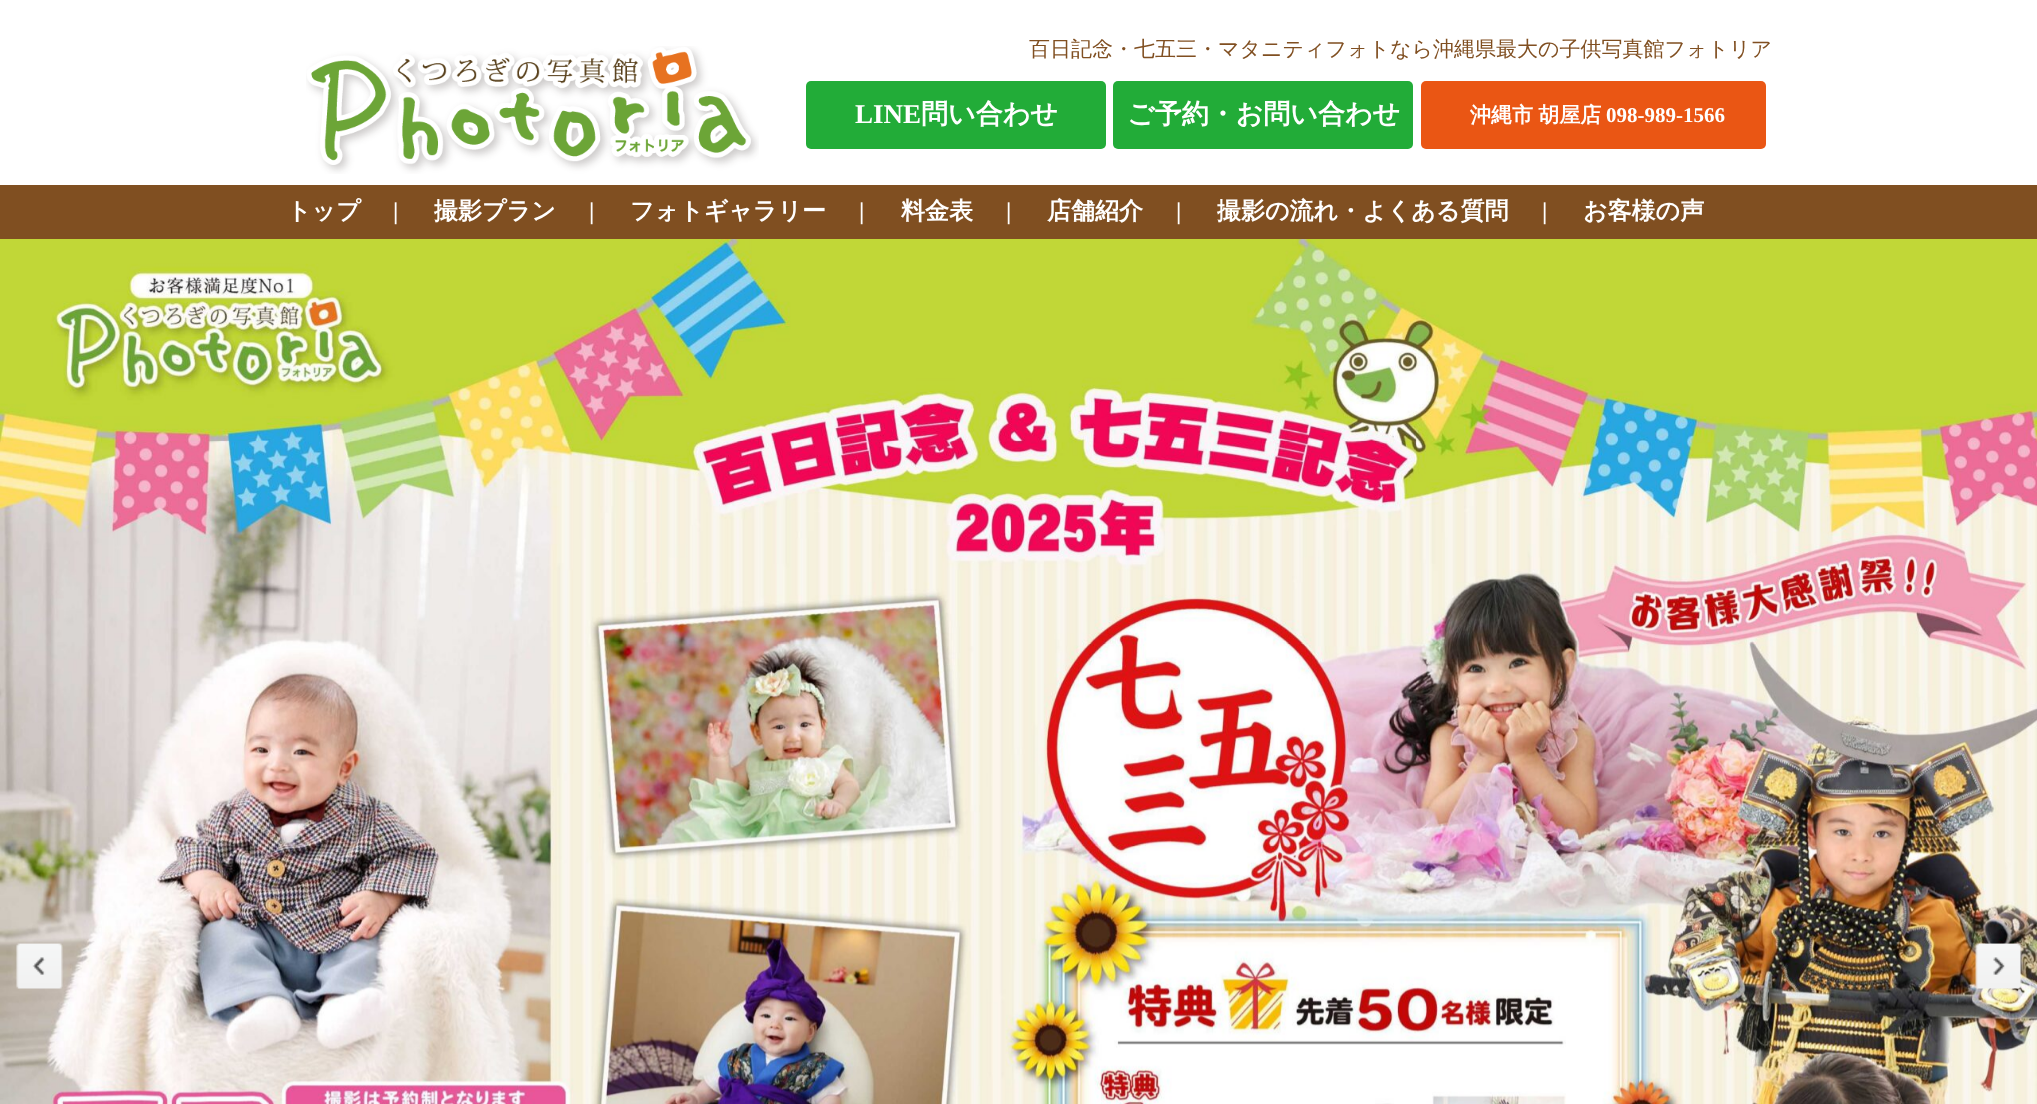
async function draw(canvas) {
	canvas.width = 2037;
	canvas.height = 1104;
	const c = canvas.getContext('2d');
	c.miterLimit = 4;
	c.fontKerning = 'normal';
	async function loadImage(src) {
		const img = new Image();
		img.src = src;
		await img.decode();
		return img;
	}

	c.fillStyle = '#fff';
	c.fillRect(0, 0, 2037, 1104);
	c.drawImage(await loadImage('img1.png'), 306, 46, 453, 128);
	c.font = '500 21px WenQuanYi Zen Hei';
	c.fillStyle = '#804f21';
	c.fillText('百日記念・七五三・マタニティフォトなら沖縄県最大の子供写真館フォトリア', 1029, 56);
	c.fillStyle = '#22ac38';
	c.beginPath();
	c.roundRect(806, 81, 300, 68, 5);
	c.fill();
	c.font = 'bold 27px Liberation Serif';
	c.fillStyle = '#fff';
	c.fillText('LINE', 855, 123);
	c.font = 'bold 27px WenQuanYi Zen Hei';
	c.fillText('問い合わせ', 921, 123);
	c.fillStyle = '#22ac38';
	c.beginPath();
	c.roundRect(1113, 81, 300, 68, 5);
	c.fill();
	c.fillStyle = '#fff';
	c.fillText('ご予約・お問い合わせ', 1127, 123);
	c.fillStyle = '#ea5614';
	c.beginPath();
	c.roundRect(1421, 81, 345, 68, 5);
	c.fill();
	c.wordSpacing = '-1px';
	c.font = 'bold 21px WenQuanYi Zen Hei';
	c.fillStyle = '#fff';
	c.fillText('沖縄市 胡屋店', 1470, 122);
	c.wordSpacing = '0px';
	c.font = 'bold 21px Liberation Serif';
	c.fillText('098-989-1566', 1606, 122);
	c.fillStyle = '#804f21';
	c.fillRect(0, 185, 2037, 54);
	c.font = 'bold 24px WenQuanYi Zen Hei';
	c.fillStyle = '#fff';
	c.fillText('トップ', 287, 219);
	c.font = 'bold 24px Liberation Serif';
	c.fillText('|', 393, 219);
	c.font = 'bold 24px WenQuanYi Zen Hei';
	c.fillText('撮影プラン', 434, 219);
	c.font = 'bold 24px Liberation Serif';
	c.fillText('|', 589, 219);
	c.font = 'bold 24px WenQuanYi Zen Hei';
	c.fillText('フォトギャラリー', 630, 219);
	c.font = 'bold 24px Liberation Serif';
	c.fillText('|', 859, 219);
	c.font = 'bold 24px WenQuanYi Zen Hei';
	c.fillText('料金表', 901, 219);
	c.font = 'bold 24px Liberation Serif';
	c.fillText('|', 1006, 219);
	c.font = 'bold 24px WenQuanYi Zen Hei';
	c.fillText('店舗紹介', 1047, 219);
	c.font = 'bold 24px Liberation Serif';
	c.fillText('|', 1176, 219);
	c.font = 'bold 24px WenQuanYi Zen Hei';
	c.fillText('撮影の流れ・よくある質問', 1217, 219);
	c.font = 'bold 24px Liberation Serif';
	c.fillText('|', 1542, 219);
	c.font = 'bold 24px WenQuanYi Zen Hei';
	c.fillText('お客様の声', 1583, 219);
	c.drawImage(await loadImage('img2.png'), 0, 239, 2037, 865);
	c.drawImage(await loadImage('img3.png'), 16, 943, 47, 46);
	c.drawImage(await loadImage('img4.png'), 1975, 943, 47, 46);
}

draw(document.querySelector('canvas'));
